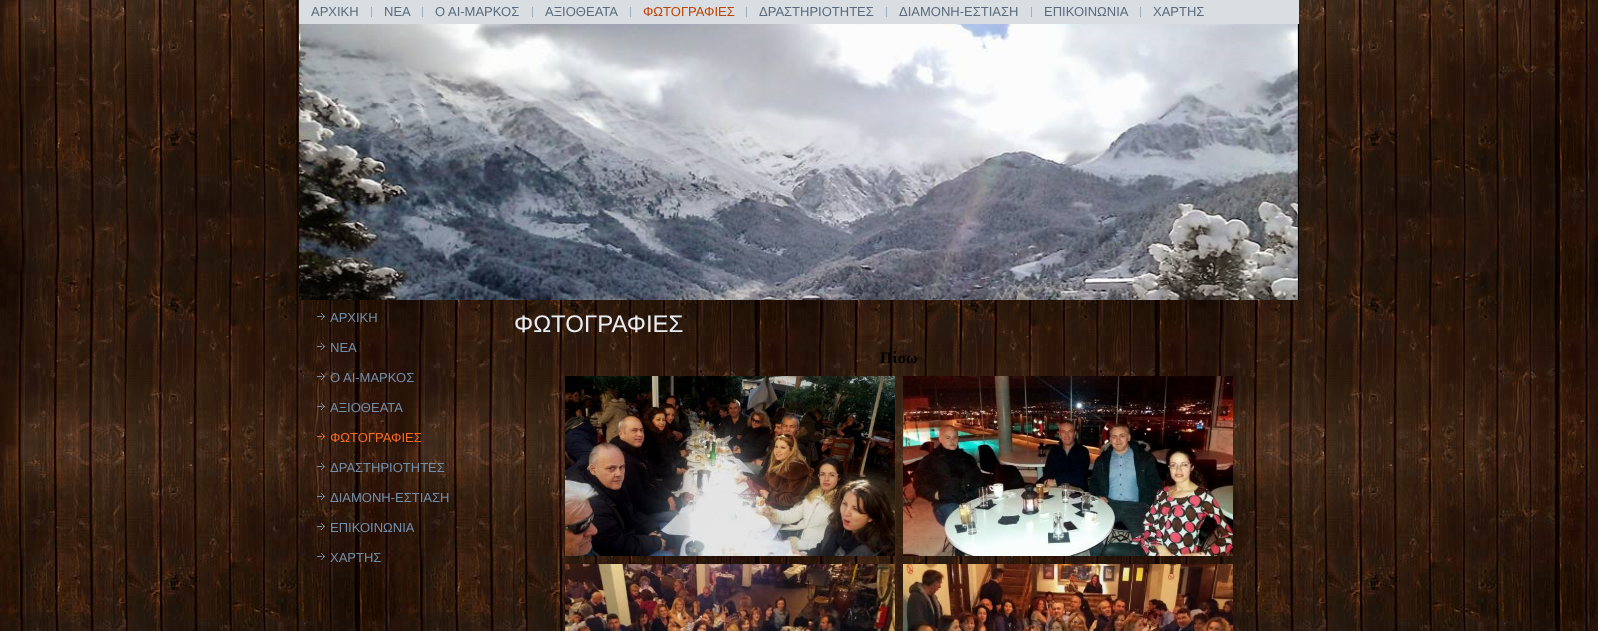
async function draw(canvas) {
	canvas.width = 1598;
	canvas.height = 631;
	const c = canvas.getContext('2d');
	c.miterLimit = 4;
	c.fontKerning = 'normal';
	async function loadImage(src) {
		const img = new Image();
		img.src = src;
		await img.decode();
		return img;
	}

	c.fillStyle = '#fff';
	c.fillRect(0, 0, 1598, 631);
	c.drawImage(await loadImage('img1.png'), 0, 0, 1598, 631);
	c.drawImage(await loadImage('img2.png'), 299, 24, 1000, 276);
	c.fillStyle = '#d9dee3';
	c.fillRect(299, 0, 1000, 24);
	c.font = '13px Liberation Sans';
	c.fillStyle = '#5b6b7b';
	c.fillText('ΑΡΧΙΚΗ', 311, 16);
	c.fillStyle = '#9cafc4';
	c.fillRect(371, 7, 1, 10);
	c.fillStyle = '#5b6b7b';
	c.fillText('ΝΕΑ', 384, 16);
	c.fillStyle = '#9cafc4';
	c.fillRect(422, 7, 1, 10);
	c.fillStyle = '#5b6b7b';
	c.fillText('Ο ΑΙ-ΜΑΡΚΟΣ', 435, 16);
	c.fillStyle = '#9cafc4';
	c.fillRect(532, 7, 1, 10);
	c.fillStyle = '#5b6b7b';
	c.fillText('ΑΞΙΟΘΕΑΤΑ', 545, 16);
	c.fillStyle = '#9cafc4';
	c.fillRect(630, 7, 1, 10);
	c.fillStyle = '#be4204';
	c.fillText('ΦΩΤΟΓΡΑΦΙΕΣ', 643, 16);
	c.fillStyle = '#9cafc4';
	c.fillRect(746, 7, 1, 10);
	c.fillStyle = '#5b6b7b';
	c.fillText('ΔΡΑΣΤΗΡΙΟΤΗΤΕΣ', 759, 16);
	c.fillStyle = '#9cafc4';
	c.fillRect(886, 7, 1, 10);
	c.fillStyle = '#5b6b7b';
	c.fillText('ΔΙΑΜΟΝΗ-ΕΣΤΙΑΣΗ', 899, 16);
	c.fillStyle = '#9cafc4';
	c.fillRect(1031, 7, 1, 10);
	c.fillStyle = '#5b6b7b';
	c.fillText('ΕΠΙΚΟΙΝΩΝΙΑ', 1044, 16);
	c.fillStyle = '#9cafc4';
	c.fillRect(1140, 7, 1, 10);
	c.fillStyle = '#5b6b7b';
	c.fillText('ΧΑΡΤΗΣ', 1153, 16);
	c.drawImage(await loadImage('img3.png'), 317, 313, 8, 7);
	c.fillStyle = '#738eab';
	c.fillText('ΑΡΧΙΚΗ', 330, 322);
	c.drawImage(await loadImage('img4.png'), 317, 343, 8, 7);
	c.fillText('ΝΕΑ', 330, 352);
	c.drawImage(await loadImage('img5.png'), 317, 373, 8, 7);
	c.fillText('Ο ΑΙ-ΜΑΡΚΟΣ', 330, 382);
	c.drawImage(await loadImage('img6.png'), 317, 403, 8, 7);
	c.fillText('ΑΞΙΟΘΕΑΤΑ', 330, 412);
	c.drawImage(await loadImage('img7.png'), 317, 433, 8, 7);
	c.fillStyle = '#fb6b23';
	c.fillText('ΦΩΤΟΓΡΑΦΙΕΣ', 330, 442);
	c.drawImage(await loadImage('img8.png'), 317, 463, 8, 7);
	c.fillStyle = '#738eab';
	c.fillText('ΔΡΑΣΤΗΡΙΟΤΗΤΕΣ', 330, 472);
	c.drawImage(await loadImage('img9.png'), 317, 493, 8, 7);
	c.fillText('ΔΙΑΜΟΝΗ-ΕΣΤΙΑΣΗ', 330, 502);
	c.drawImage(await loadImage('img10.png'), 317, 523, 8, 7);
	c.fillText('ΕΠΙΚΟΙΝΩΝΙΑ', 330, 532);
	c.drawImage(await loadImage('img11.png'), 317, 553, 8, 7);
	c.fillText('ΧΑΡΤΗΣ', 330, 562);
	c.font = '24px Liberation Sans';
	c.fillStyle = '#e9edf2';
	c.fillText('ΦΩΤΟΓΡΑΦΙΕΣ', 514, 332);
	c.font = 'bold 16px Liberation Serif';
	c.fillStyle = '#000';
	c.fillText('Πίσω', 880, 363);
	c.drawImage(await loadImage('img12.png'), 565, 376, 330, 180);
	c.drawImage(await loadImage('img13.png'), 903, 376, 330, 180);
	c.drawImage(await loadImage('img14.png'), 565, 564, 330, 67);
	c.drawImage(await loadImage('img15.png'), 903, 564, 330, 67);
}

draw(document.querySelector('canvas'));
